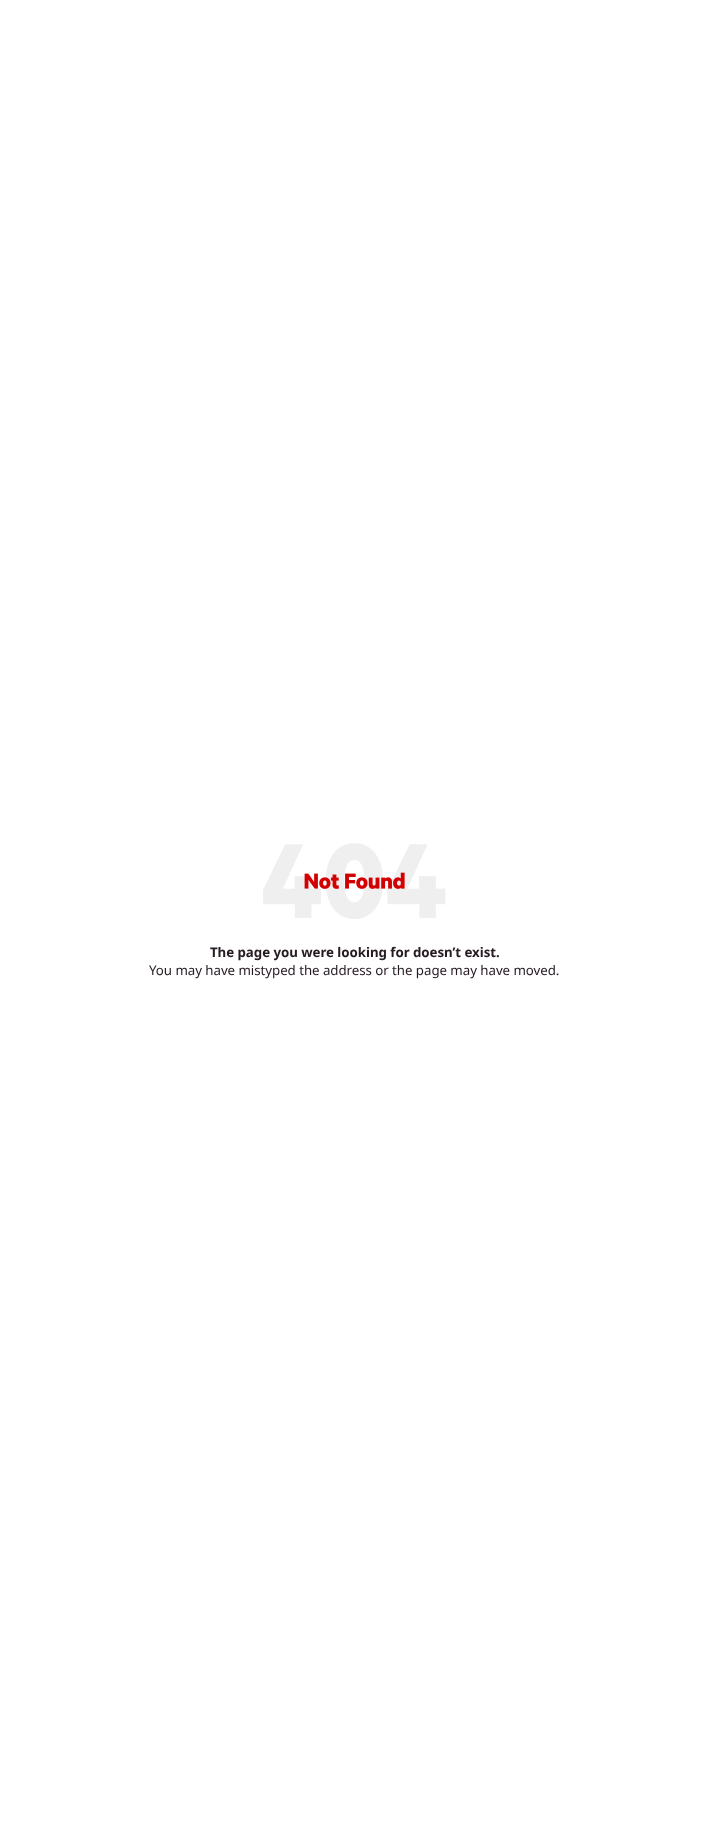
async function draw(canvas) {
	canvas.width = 709;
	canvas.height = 1823;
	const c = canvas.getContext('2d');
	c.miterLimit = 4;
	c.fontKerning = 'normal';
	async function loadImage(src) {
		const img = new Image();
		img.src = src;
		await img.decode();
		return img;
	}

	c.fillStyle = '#fff';
	c.fillRect(0, 0, 709, 1823);
	c.drawImage(await loadImage('img1.png'), 263, 843, 183, 76);
	c.letterSpacing = '-0.05px';
	c.font = 'bold 13.3px Noto Sans';
	c.fillStyle = '#261b23';
	c.fillText('The page you were looking for doesn’t exist.', 210, 957);
	c.font = '13.3px Noto Sans';
	c.fillText('You may have mistyped the address or the page may have moved.', 149, 975);
}

draw(document.querySelector('canvas'));
